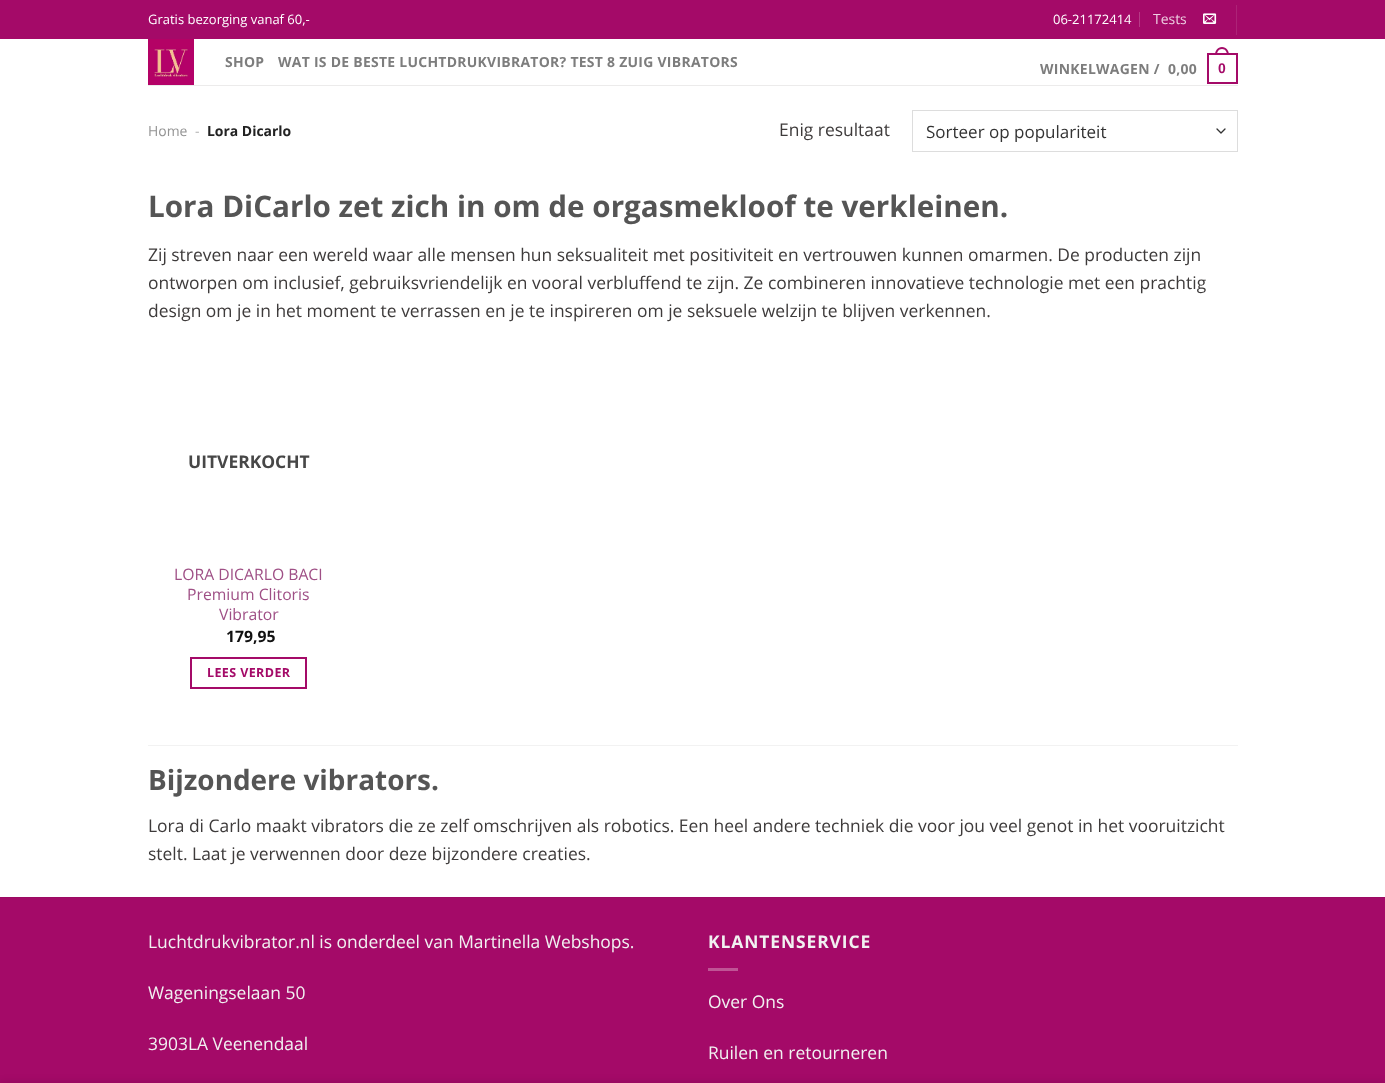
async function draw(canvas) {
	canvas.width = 1385;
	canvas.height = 1083;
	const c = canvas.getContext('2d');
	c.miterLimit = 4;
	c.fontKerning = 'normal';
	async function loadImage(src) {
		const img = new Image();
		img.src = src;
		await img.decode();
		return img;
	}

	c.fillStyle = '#fff';
	c.fillRect(0, 0, 1385, 1083);
	c.fillStyle = '#a40a68';
	c.fillRect(0, 0, 1385, 39);
	c.font = '13px Open Sans';
	c.fillStyle = '#fff';
	c.fillText('Gratis bezorging vanaf 60,-', 148, 24);
	c.fillText('06-21172414', 1053, 24);
	c.fillStyle = '#b63b86';
	c.fillRect(1139, 12, 1, 15);
	c.font = '13.95px Open Sans';
	c.fillStyle = '#edcee1';
	c.fillText('Tests', 1153, 24);
	c.drawImage(await loadImage('img1.png'), 1203, 13, 14, 11);
	c.fillStyle = '#ad2377';
	c.fillRect(1236, 5, 1, 30);
	c.drawImage(await loadImage('img2.png'), 148, 39, 46, 46);
	c.letterSpacing = '0.28px';
	c.font = 'bold 13.95px Open Sans';
	c.fillStyle = '#7d7d7d';
	for (const [text, x, y] of [
		['SHOP', 225, 67],
		['WAT IS DE BESTE LUCHTDRUKVIBRATOR? TEST 8 ZUIG VIBRATORS', 278, 67],
		['WINKELWAGEN /', 1040, 74],
		['0,00', 1168, 74],
	]) {
		c.fillText(text, x, y);
	}
	c.strokeStyle = '#a40a68';
	c.lineWidth = 2;
	c.strokeRect(1208, 54, 29, 29);
	c.fillStyle = '#a40a68';
	c.beginPath();
	c.moveTo(1222, 47);
	c.bezierCurveTo(1226.5, 47, 1229, 51, 1229, 55);
	c.lineTo(1215, 55);
	c.bezierCurveTo(1215, 51, 1217.5, 47, 1222, 47);
	c.closePath();
	c.moveTo(1222, 49);
	c.bezierCurveTo(1225.5, 49, 1227, 52, 1227, 55);
	c.lineTo(1217, 55);
	c.bezierCurveTo(1217, 52, 1218.5, 49, 1222, 49);
	c.closePath();
	c.fill('evenodd');
	c.font = 'bold 13.95px Liberation Sans';
	c.fillText('0', 1218, 73);
	c.fillStyle = '#ecebeb';
	c.fillRect(148, 85, 1090, 1);
	c.letterSpacing = '0px';
	c.font = '13.95px Open Sans';
	c.fillStyle = '#949494';
	c.fillText('Home', 148, 136);
	c.fillStyle = '#b2b2b2';
	c.fillText('-', 195, 136);
	c.font = 'bold 13.95px Open Sans';
	c.fillStyle = '#222';
	c.fillText('Lora Dicarlo', 207, 136);
	c.font = '17.45px Open Sans';
	c.fillStyle = '#3e3b3b';
	c.fillText('Enig resultaat', 779, 136);
	c.beginPath();
	c.moveTo(1217, 129);
	c.lineTo(1221, 133);
	c.lineTo(1225, 129);
	c.strokeStyle = '#333';
	c.lineWidth = 1.3;
	c.lineCap = 'round';
	c.lineJoin = 'round';
	c.stroke();
	c.strokeStyle = '#ddd';
	c.lineWidth = 1;
	c.lineJoin = 'miter';
	c.strokeRect(912.5, 110.5, 325, 41);
	c.font = '17px Open Sans';
	c.fillStyle = '#333';
	c.fillText('Sorteer op populariteit', 926, 138);
	c.font = 'bold 29.65px Open Sans';
	c.fillStyle = '#555';
	c.fillText('Lora DiCarlo zet zich in om de orgasmekloof te verkleinen.', 148, 217);
	c.font = '17.45px Open Sans';
	c.fillStyle = '#3e3b3b';
	for (const [text, x, y] of [
		['Zij streven naar een wereld waar alle mensen hun seksualiteit met positiviteit en vertrouwen kunnen omarmen. De producten zijn', 148, 261],
		['ontworpen om inclusief, gebruiksvriendelijk en vooral verbluffend te zijn. Ze combineren innovatieve technologie met een prachtig', 148, 289],
		['design om je in het moment te verrassen en je te inspireren om je seksuele welzijn te blijven verkennen.', 148, 317],
	]) {
		c.fillText(text, x, y);
	}
	c.font = 'bold 17.45px Open Sans';
	c.fillStyle = '#474747';
	c.fillText('UITVERKOCHT', 188, 468);
	c.font = '15.75px Open Sans';
	c.fillStyle = '#9f5086';
	for (const [text, x, y] of [
		['LORA DICARLO BACI', 174, 580],
		['Premium Clitoris', 187, 600],
		['Vibrator', 219, 620],
	]) {
		c.fillText(text, x, y);
	}
	c.font = 'bold 15.75px Open Sans';
	c.fillStyle = '#111';
	c.fillText('179,95', 226, 642);
	c.strokeStyle = '#a40a68';
	c.lineWidth = 2;
	c.strokeRect(191, 658, 115, 30);
	c.letterSpacing = '0.4px';
	c.font = 'bold 12.5px Open Sans';
	c.fillStyle = '#a40a68';
	c.fillText('LEES VERDER', 207, 677);
	c.fillStyle = '#f2f2f2';
	c.fillRect(148, 745, 1090, 1);
	c.letterSpacing = '0px';
	c.font = 'bold 27.9px Open Sans';
	c.fillStyle = '#555';
	c.fillText('Bijzondere vibrators.', 148, 790);
	c.font = '17.45px Open Sans';
	c.fillStyle = '#3e3b3b';
	c.fillText('Lora di Carlo maakt vibrators die ze zelf omschrijven als robotics. Een heel andere techniek die voor jou veel genot in het vooruitzicht', 148, 832);
	c.fillText('stelt. Laat je verwennen door deze bijzondere creaties.', 148, 860);
	c.fillStyle = '#a40a68';
	c.fillRect(0, 898, 1385, 185);
	c.fillStyle = '#9c0a63';
	c.fillRect(0, 897, 1385, 1);
	c.fillStyle = '#f1f1f1';
	for (const [text, x, y] of [
		['Luchtdrukvibrator.nl is onderdeel van Martinella Webshops.', 148, 948],
		['Wageningselaan 50', 148, 999],
		['3903LA Veenendaal', 148, 1050],
	]) {
		c.fillText(text, x, y);
	}
	c.letterSpacing = '0.9px';
	c.font = 'bold 17.45px Open Sans';
	c.fillText('KLANTENSERVICE', 708, 948);
	c.fillStyle = '#bf5495';
	c.fillRect(708, 968, 30, 3);
	c.letterSpacing = '0px';
	c.font = '17.45px Open Sans';
	c.fillStyle = '#f1f1f1';
	c.fillText('Over Ons', 708, 1008);
	c.fillText('Ruilen en retourneren', 708, 1059);
	c.fillStyle = '#00000024';
	c.filter = 'blur(4.5px)';
	c.beginPath();
	c.rect(0, 1083, 1385, 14);
	c.fill();
	c.filter = 'none';
}

draw(document.querySelector('canvas'));
